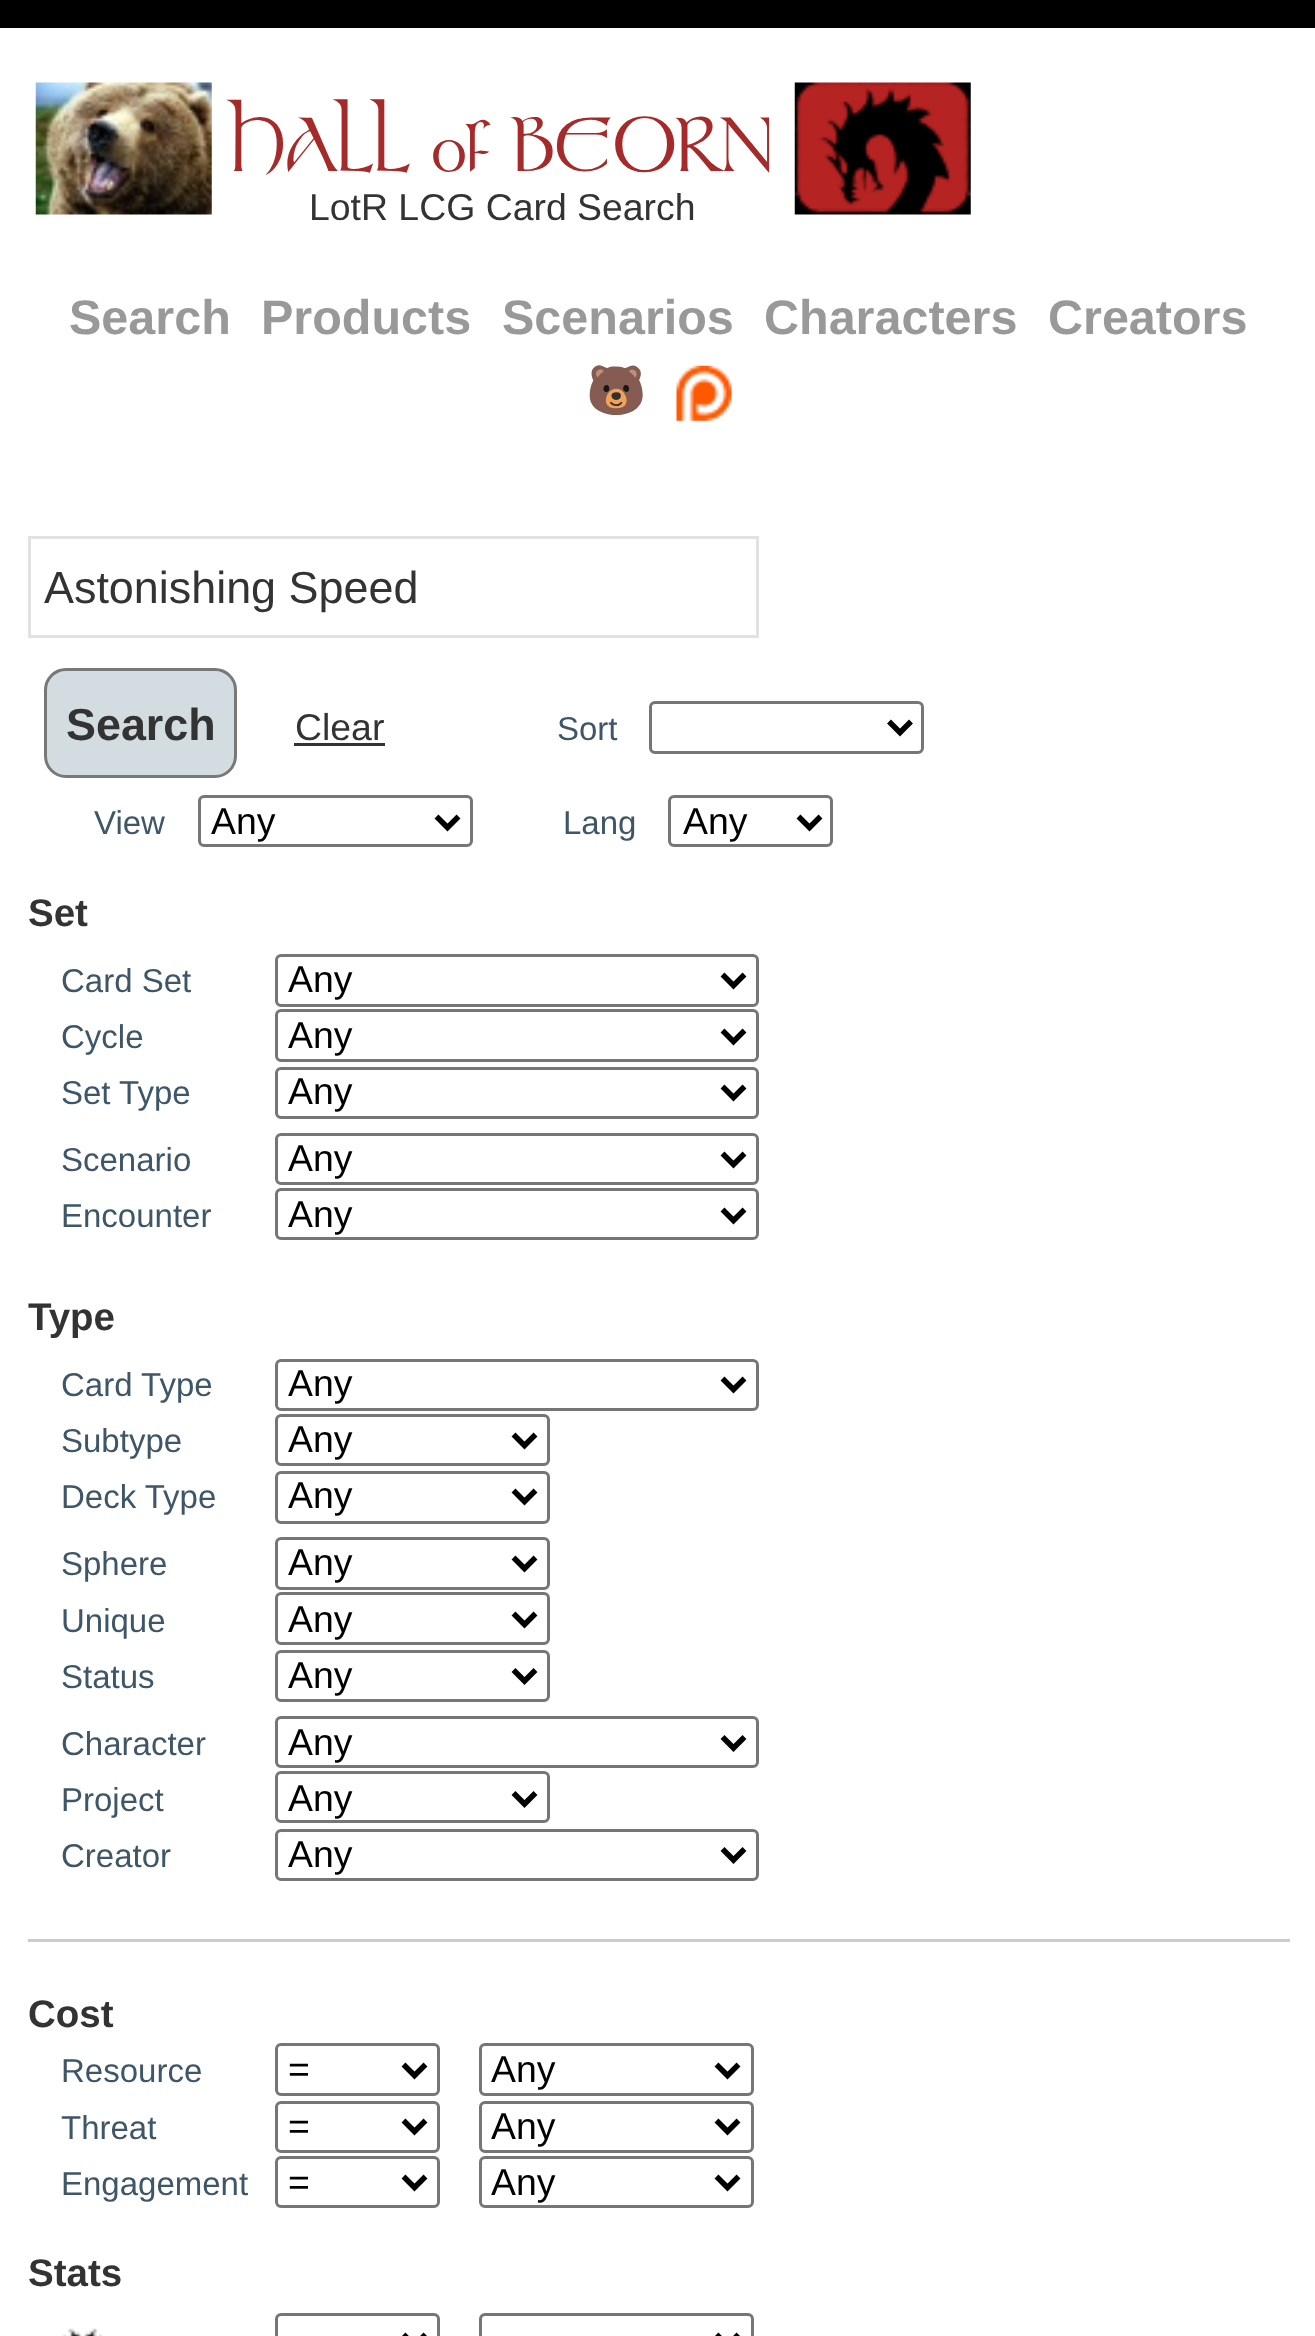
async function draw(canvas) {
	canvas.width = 1315;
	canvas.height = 2336;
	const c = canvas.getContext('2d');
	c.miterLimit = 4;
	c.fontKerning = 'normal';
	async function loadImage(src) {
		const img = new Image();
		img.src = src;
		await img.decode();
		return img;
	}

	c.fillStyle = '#fff';
	c.fillRect(0, 0, 1315, 2336);
	c.fillStyle = '#000';
	c.fillRect(0, 0, 1315, 28);
	c.drawImage(await loadImage('img1.png'), 35, 82, 177, 133);
	c.font = '74.25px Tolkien';
	c.fillStyle = '#a52a2a';
	c.fillText('HALL of BEORN', 230, 171);
	c.drawImage(await loadImage('img2.png'), 794, 82, 177, 133);
	c.font = '37.4px Liberation Sans';
	c.fillStyle = '#333';
	c.fillText('LotR LCG Card Search', 309, 220);
	c.font = 'bold 48.5px Liberation Sans';
	c.fillStyle = '#999';
	for (const [text, x, y] of [
		['Search', 69, 334],
		['Products', 261, 334],
		['Scenarios', 502, 334],
		['Characters', 764, 334],
		['Creators', 1048, 334],
	]) {
		c.fillText(text, x, y);
	}
	c.font = 'bold 48.5px Noto Color Emoji';
	c.fillText('🐻', 586, 407);
	c.drawImage(await loadImage('img3.png'), 676, 365, 56, 56);
	c.strokeStyle = '#e2e2e2';
	c.lineWidth = 3;
	c.strokeRect(29.5, 537.5, 728, 99);
	c.font = '44.9px Liberation Sans';
	c.fillStyle = '#333';
	c.fillText('Astonishing Speed', 44, 603);
	c.fillStyle = '#d3dce0';
	c.beginPath();
	c.roundRect(45.5, 669.5, 190, 107, 20.5);
	c.fill();
	c.strokeStyle = '#787878';
	c.stroke();
	c.font = 'bold 44.9px Liberation Sans';
	c.fillStyle = '#333';
	c.fillText('Search', 66, 740);
	c.font = '37.4px Liberation Sans';
	c.fillText('Clear', 295, 740);
	c.fillRect(294, 743, 91, 3);
	c.font = '33px Liberation Sans';
	c.fillStyle = '#3e5667';
	c.fillText('Sort', 557, 740);
	c.beginPath();
	c.roundRect(650.5, 702.5, 272, 50, 4.5);
	c.strokeStyle = '#767676';
	c.stroke();
	c.beginPath();
	c.moveTo(889, 721.5);
	c.lineTo(900, 732.5);
	c.lineTo(911, 721.5);
	c.strokeStyle = '#000';
	c.lineWidth = 5.5;
	c.stroke();
	c.fillText('View', 94, 834);
	c.beginPath();
	c.roundRect(199.5, 796.5, 272, 49, 4.5);
	c.strokeStyle = '#767676';
	c.lineWidth = 3;
	c.stroke();
	c.beginPath();
	c.moveTo(436.5, 816.5);
	c.lineTo(447.5, 827.5);
	c.lineTo(458.5, 816.5);
	c.strokeStyle = '#000';
	c.lineWidth = 5.5;
	c.stroke();
	c.font = '37.4px Liberation Sans';
	c.fillStyle = '#000';
	c.fillText('Any', 211, 834);
	c.font = '33px Liberation Sans';
	c.fillStyle = '#3e5667';
	c.fillText('Lang', 563, 834);
	c.beginPath();
	c.roundRect(669.5, 796.5, 162, 49, 4.5);
	c.strokeStyle = '#767676';
	c.lineWidth = 3;
	c.stroke();
	c.beginPath();
	c.moveTo(798.5, 816.5);
	c.lineTo(809.5, 827.5);
	c.lineTo(820.5, 816.5);
	c.strokeStyle = '#000';
	c.lineWidth = 5.5;
	c.stroke();
	c.font = '37.4px Liberation Sans';
	c.fillStyle = '#000';
	c.fillText('Any', 683, 834);
	c.font = 'bold 38.5px Liberation Sans';
	c.fillStyle = '#333';
	c.fillText('Set', 28, 926);
	c.font = '33px Liberation Sans';
	c.fillStyle = '#3e5667';
	c.fillText('Card Set', 61, 992);
	c.beginPath();
	c.roundRect(276.5, 955.5, 481, 50, 4.5);
	c.strokeStyle = '#767676';
	c.lineWidth = 3;
	c.stroke();
	c.beginPath();
	c.moveTo(722.5, 974.5);
	c.lineTo(733.5, 985.5);
	c.lineTo(744.5, 974.5);
	c.strokeStyle = '#000';
	c.lineWidth = 5.5;
	c.stroke();
	c.font = '37.4px Liberation Sans';
	c.fillStyle = '#000';
	c.fillText('Any', 288, 992);
	c.font = '33px Liberation Sans';
	c.fillStyle = '#3e5667';
	c.fillText('Cycle', 61, 1048);
	c.beginPath();
	c.roundRect(276.5, 1010.5, 481, 50, 4.5);
	c.strokeStyle = '#767676';
	c.lineWidth = 3;
	c.stroke();
	c.beginPath();
	c.moveTo(722.5, 1030.5);
	c.lineTo(733.5, 1041.5);
	c.lineTo(744.5, 1030.5);
	c.strokeStyle = '#000';
	c.lineWidth = 5.5;
	c.stroke();
	c.font = '37.4px Liberation Sans';
	c.fillStyle = '#000';
	c.fillText('Any', 288, 1048);
	c.font = '33px Liberation Sans';
	c.fillStyle = '#3e5667';
	c.fillText('Set Type', 61, 1104);
	c.beginPath();
	c.roundRect(276.5, 1068.5, 481, 49, 4.5);
	c.strokeStyle = '#767676';
	c.lineWidth = 3;
	c.stroke();
	c.beginPath();
	c.moveTo(722.5, 1086.5);
	c.lineTo(733.5, 1097.5);
	c.lineTo(744.5, 1086.5);
	c.strokeStyle = '#000';
	c.lineWidth = 5.5;
	c.stroke();
	c.font = '37.4px Liberation Sans';
	c.fillStyle = '#000';
	c.fillText('Any', 288, 1104);
	c.font = '33px Liberation Sans';
	c.fillStyle = '#3e5667';
	c.fillText('Scenario', 61, 1171);
	c.beginPath();
	c.roundRect(276.5, 1134.5, 481, 49, 4.5);
	c.strokeStyle = '#767676';
	c.lineWidth = 3;
	c.stroke();
	c.beginPath();
	c.moveTo(722.5, 1153.5);
	c.lineTo(733.5, 1164.5);
	c.lineTo(744.5, 1153.5);
	c.strokeStyle = '#000';
	c.lineWidth = 5.5;
	c.stroke();
	c.font = '37.4px Liberation Sans';
	c.fillStyle = '#000';
	c.fillText('Any', 288, 1171);
	c.font = '33px Liberation Sans';
	c.fillStyle = '#3e5667';
	c.fillText('Encounter', 61, 1227);
	c.beginPath();
	c.roundRect(276.5, 1189.5, 481, 49, 4.5);
	c.strokeStyle = '#767676';
	c.lineWidth = 3;
	c.stroke();
	c.beginPath();
	c.moveTo(722.5, 1209.5);
	c.lineTo(733.5, 1220.5);
	c.lineTo(744.5, 1209.5);
	c.strokeStyle = '#000';
	c.lineWidth = 5.5;
	c.stroke();
	c.font = '37.4px Liberation Sans';
	c.fillStyle = '#000';
	c.fillText('Any', 288, 1227);
	c.font = 'bold 38.5px Liberation Sans';
	c.fillStyle = '#333';
	c.fillText('Type', 28, 1330);
	c.font = '33px Liberation Sans';
	c.fillStyle = '#3e5667';
	c.fillText('Card Type', 61, 1396);
	c.beginPath();
	c.roundRect(276.5, 1360.5, 481, 49, 4.5);
	c.strokeStyle = '#767676';
	c.lineWidth = 3;
	c.stroke();
	c.beginPath();
	c.moveTo(722.5, 1378.5);
	c.lineTo(733.5, 1389.5);
	c.lineTo(744.5, 1378.5);
	c.strokeStyle = '#000';
	c.lineWidth = 5.5;
	c.stroke();
	c.font = '37.4px Liberation Sans';
	c.fillStyle = '#000';
	c.fillText('Any', 288, 1396);
	c.font = '33px Liberation Sans';
	c.fillStyle = '#3e5667';
	c.fillText('Subtype', 61, 1452);
	c.beginPath();
	c.roundRect(276.5, 1415.5, 272, 49, 4.5);
	c.strokeStyle = '#767676';
	c.lineWidth = 3;
	c.stroke();
	c.beginPath();
	c.moveTo(513.5, 1434.5);
	c.lineTo(524.5, 1445.5);
	c.lineTo(535.5, 1434.5);
	c.strokeStyle = '#000';
	c.lineWidth = 5.5;
	c.stroke();
	c.font = '37.4px Liberation Sans';
	c.fillStyle = '#000';
	c.fillText('Any', 288, 1452);
	c.font = '33px Liberation Sans';
	c.fillStyle = '#3e5667';
	c.fillText('Deck Type', 61, 1508);
	c.beginPath();
	c.roundRect(276.5, 1472.5, 272, 50, 4.5);
	c.strokeStyle = '#767676';
	c.lineWidth = 3;
	c.stroke();
	c.beginPath();
	c.moveTo(513.5, 1490.5);
	c.lineTo(524.5, 1501.5);
	c.lineTo(535.5, 1490.5);
	c.strokeStyle = '#000';
	c.lineWidth = 5.5;
	c.stroke();
	c.font = '37.4px Liberation Sans';
	c.fillStyle = '#000';
	c.fillText('Any', 288, 1508);
	c.font = '33px Liberation Sans';
	c.fillStyle = '#3e5667';
	c.fillText('Sphere', 61, 1575);
	c.beginPath();
	c.roundRect(276.5, 1538.5, 272, 50, 4.5);
	c.strokeStyle = '#767676';
	c.lineWidth = 3;
	c.stroke();
	c.beginPath();
	c.moveTo(513.5, 1557.5);
	c.lineTo(524.5, 1568.5);
	c.lineTo(535.5, 1557.5);
	c.strokeStyle = '#000';
	c.lineWidth = 5.5;
	c.stroke();
	c.font = '37.4px Liberation Sans';
	c.fillStyle = '#000';
	c.fillText('Any', 288, 1575);
	c.font = '33px Liberation Sans';
	c.fillStyle = '#3e5667';
	c.fillText('Unique', 61, 1632);
	c.beginPath();
	c.roundRect(276.5, 1593.5, 272, 50, 4.5);
	c.strokeStyle = '#767676';
	c.lineWidth = 3;
	c.stroke();
	c.beginPath();
	c.moveTo(513.5, 1613.5);
	c.lineTo(524.5, 1624.5);
	c.lineTo(535.5, 1613.5);
	c.strokeStyle = '#000';
	c.lineWidth = 5.5;
	c.stroke();
	c.font = '37.4px Liberation Sans';
	c.fillStyle = '#000';
	c.fillText('Any', 288, 1632);
	c.font = '33px Liberation Sans';
	c.fillStyle = '#3e5667';
	c.fillText('Status', 61, 1688);
	c.beginPath();
	c.roundRect(276.5, 1651.5, 272, 49, 4.5);
	c.strokeStyle = '#767676';
	c.lineWidth = 3;
	c.stroke();
	c.beginPath();
	c.moveTo(513.5, 1670);
	c.lineTo(524.5, 1681);
	c.lineTo(535.5, 1670);
	c.strokeStyle = '#000';
	c.lineWidth = 5.5;
	c.stroke();
	c.font = '37.4px Liberation Sans';
	c.fillStyle = '#000';
	c.fillText('Any', 288, 1688);
	c.font = '33px Liberation Sans';
	c.fillStyle = '#3e5667';
	c.fillText('Character', 61, 1755);
	c.beginPath();
	c.roundRect(276.5, 1717.5, 481, 49, 4.5);
	c.strokeStyle = '#767676';
	c.lineWidth = 3;
	c.stroke();
	c.beginPath();
	c.moveTo(722.5, 1737);
	c.lineTo(733.5, 1748);
	c.lineTo(744.5, 1737);
	c.strokeStyle = '#000';
	c.lineWidth = 5.5;
	c.stroke();
	c.font = '37.4px Liberation Sans';
	c.fillStyle = '#000';
	c.fillText('Any', 288, 1755);
	c.font = '33px Liberation Sans';
	c.fillStyle = '#3e5667';
	c.fillText('Project', 61, 1811);
	c.beginPath();
	c.roundRect(276.5, 1772.5, 272, 49, 4.5);
	c.strokeStyle = '#767676';
	c.lineWidth = 3;
	c.stroke();
	c.beginPath();
	c.moveTo(513.5, 1793);
	c.lineTo(524.5, 1804);
	c.lineTo(535.5, 1793);
	c.strokeStyle = '#000';
	c.lineWidth = 5.5;
	c.stroke();
	c.font = '37.4px Liberation Sans';
	c.fillStyle = '#000';
	c.fillText('Any', 288, 1811);
	c.font = '33px Liberation Sans';
	c.fillStyle = '#3e5667';
	c.fillText('Creator', 61, 1867);
	c.beginPath();
	c.roundRect(276.5, 1830.5, 481, 49, 4.5);
	c.strokeStyle = '#767676';
	c.lineWidth = 3;
	c.stroke();
	c.beginPath();
	c.moveTo(722.5, 1849);
	c.lineTo(733.5, 1860);
	c.lineTo(744.5, 1849);
	c.strokeStyle = '#000';
	c.lineWidth = 5.5;
	c.stroke();
	c.font = '37.4px Liberation Sans';
	c.fillStyle = '#000';
	c.fillText('Any', 288, 1867);
	c.fillStyle = '#ccc';
	c.fillRect(28, 1939, 1262, 3);
	c.font = 'bold 38.5px Liberation Sans';
	c.fillStyle = '#333';
	c.fillText('Cost', 28, 2027);
	c.font = '33px Liberation Sans';
	c.fillStyle = '#3e5667';
	c.fillText('Resource', 61, 2082);
	c.beginPath();
	c.roundRect(276.5, 2044.5, 162, 50, 4.5);
	c.strokeStyle = '#767676';
	c.lineWidth = 3;
	c.stroke();
	c.beginPath();
	c.moveTo(403.5, 2064.5);
	c.lineTo(414.5, 2075.5);
	c.lineTo(425.5, 2064.5);
	c.strokeStyle = '#000';
	c.lineWidth = 5.5;
	c.stroke();
	c.font = '37.4px Liberation Sans';
	c.fillStyle = '#000';
	c.fillText('=', 288, 2082);
	c.beginPath();
	c.roundRect(480.5, 2044.5, 272, 50, 4.5);
	c.strokeStyle = '#767676';
	c.lineWidth = 3;
	c.stroke();
	c.beginPath();
	c.moveTo(716.5, 2064.5);
	c.lineTo(727.5, 2075.5);
	c.lineTo(738.5, 2064.5);
	c.strokeStyle = '#000';
	c.lineWidth = 5.5;
	c.stroke();
	c.fillText('Any', 491, 2082);
	c.font = '33px Liberation Sans';
	c.fillStyle = '#3e5667';
	c.fillText('Threat', 61, 2139);
	c.beginPath();
	c.roundRect(276.5, 2102.5, 162, 49, 4.5);
	c.strokeStyle = '#767676';
	c.lineWidth = 3;
	c.stroke();
	c.beginPath();
	c.moveTo(403.5, 2120.5);
	c.lineTo(414.5, 2131.5);
	c.lineTo(425.5, 2120.5);
	c.strokeStyle = '#000';
	c.lineWidth = 5.5;
	c.stroke();
	c.font = '37.4px Liberation Sans';
	c.fillStyle = '#000';
	c.fillText('=', 288, 2139);
	c.beginPath();
	c.roundRect(480.5, 2102.5, 272, 49, 4.5);
	c.strokeStyle = '#767676';
	c.lineWidth = 3;
	c.stroke();
	c.beginPath();
	c.moveTo(716.5, 2120.5);
	c.lineTo(727.5, 2131.5);
	c.lineTo(738.5, 2120.5);
	c.strokeStyle = '#000';
	c.lineWidth = 5.5;
	c.stroke();
	c.fillText('Any', 491, 2139);
	c.font = '33px Liberation Sans';
	c.fillStyle = '#3e5667';
	c.fillText('Engagement', 61, 2195);
	c.beginPath();
	c.roundRect(276.5, 2157.5, 162, 49, 4.5);
	c.strokeStyle = '#767676';
	c.lineWidth = 3;
	c.stroke();
	c.beginPath();
	c.moveTo(403.5, 2176.5);
	c.lineTo(414.5, 2187.5);
	c.lineTo(425.5, 2176.5);
	c.strokeStyle = '#000';
	c.lineWidth = 5.5;
	c.stroke();
	c.font = '37.4px Liberation Sans';
	c.fillStyle = '#000';
	c.fillText('=', 288, 2195);
	c.beginPath();
	c.roundRect(480.5, 2157.5, 272, 49, 4.5);
	c.strokeStyle = '#767676';
	c.lineWidth = 3;
	c.stroke();
	c.beginPath();
	c.moveTo(716.5, 2176.5);
	c.lineTo(727.5, 2187.5);
	c.lineTo(738.5, 2176.5);
	c.strokeStyle = '#000';
	c.lineWidth = 5.5;
	c.stroke();
	c.fillText('Any', 491, 2195);
	c.font = 'bold 38.5px Liberation Sans';
	c.fillStyle = '#333';
	c.fillText('Stats', 28, 2286);
	c.drawImage(await loadImage('img4.png'), 63, 2328, 40, 8);
	c.beginPath();
	c.roundRect(276.5, 2314.5, 162, 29, 4.5);
	c.strokeStyle = '#767676';
	c.lineWidth = 3;
	c.stroke();
	c.beginPath();
	c.moveTo(403.5, 2334.5);
	c.lineTo(414.5, 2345.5);
	c.lineTo(425.5, 2334.5);
	c.strokeStyle = '#000';
	c.lineWidth = 5.5;
	c.stroke();
	c.beginPath();
	c.roundRect(480.5, 2314.5, 272, 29, 4.5);
	c.strokeStyle = '#767676';
	c.lineWidth = 3;
	c.stroke();
	c.beginPath();
	c.moveTo(716.5, 2334.5);
	c.lineTo(727.5, 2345.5);
	c.lineTo(738.5, 2334.5);
	c.strokeStyle = '#000';
	c.lineWidth = 5.5;
	c.stroke();
}

draw(document.querySelector('canvas'));
